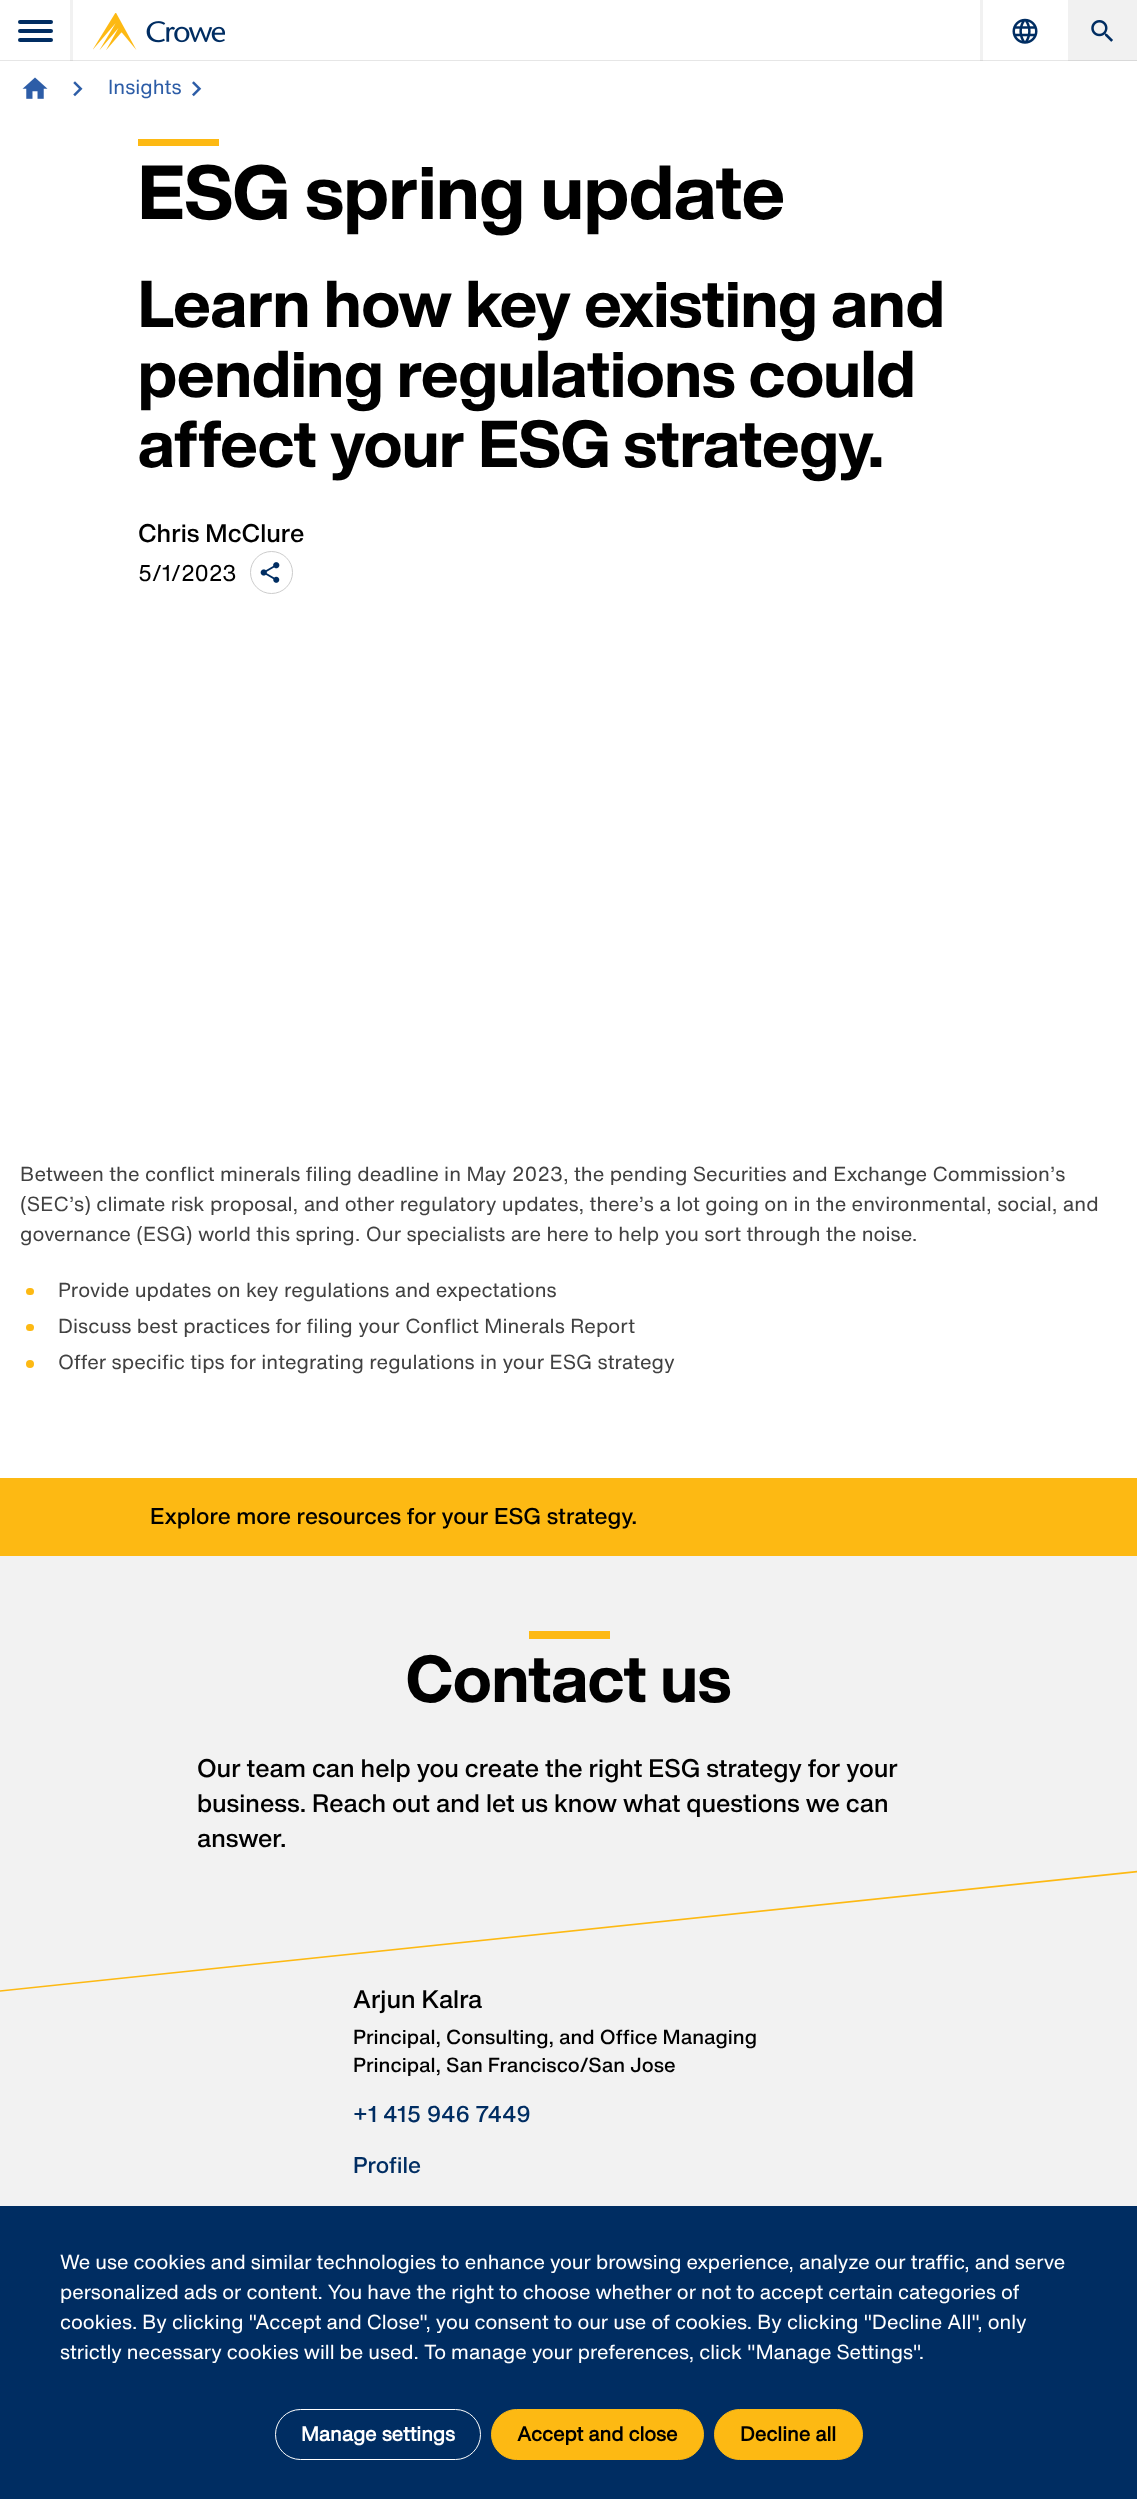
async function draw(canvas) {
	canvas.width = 1137;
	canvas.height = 2499;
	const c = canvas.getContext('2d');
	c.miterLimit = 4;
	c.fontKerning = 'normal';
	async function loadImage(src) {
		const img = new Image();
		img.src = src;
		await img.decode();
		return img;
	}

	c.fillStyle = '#fff';
	c.fillRect(0, 0, 1137, 2499);
	for (const [x, y, w, h, color] of [
		[0, 60, 1068, 1, '#e6e6e6'],
		[70, 0, 3, 61, '#f1f1f1'],
		[70, 60, 3, 1, '#d9d9d9'],
	]) {
		c.fillStyle = color;
		c.fillRect(x, y, w, h);
	}
	c.fillStyle = '#002d62';
	c.beginPath();
	c.roundRect(18, 20, 35, 4, 2);
	c.fill();
	c.beginPath();
	c.roundRect(18, 29, 35, 4, 2);
	c.fill();
	c.beginPath();
	c.roundRect(18, 38, 35, 4, 2);
	c.fill();
	c.fillStyle = '#f1f1f1';
	c.fillRect(980, 0, 3, 61);
	c.fillStyle = '#d9d9d9';
	c.fillRect(980, 60, 3, 1);
	c.drawImage(await loadImage('img1.png'), 93, 13, 132, 37);
	c.drawImage(await loadImage('img2.png'), 1012, 18, 26, 26);
	c.fillStyle = '#f1f1f1';
	c.fillRect(1068, 0, 69, 60);
	c.fillStyle = '#d9d9d9';
	c.fillRect(1068, 60, 69, 1);
	c.drawImage(await loadImage('img3.png'), 1091, 20, 22, 22);
	c.drawImage(await loadImage('img4.png'), 22, 77, 26, 22);
	c.drawImage(await loadImage('img5.png'), 73, 81, 10, 16);
	c.font = '20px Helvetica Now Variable';
	c.fillStyle = '#2d5da7';
	c.fillText('Insights', 108, 94);
	c.drawImage(await loadImage('img6.png'), 192, 81, 10, 16);
	c.fillStyle = '#fdb913';
	c.fillRect(138, 139, 81, 7);
	c.font = 'bold 75px Helvetica Now Variable';
	c.fillStyle = '#000';
	c.fillText('ESG spring update', 138, 219);
	c.font = 'bold 65px Helvetica Now Variable';
	for (const [text, x, y] of [
		['Learn how key existing and', 138, 327],
		['pending regulations could', 138, 397],
		['affect your ESG strategy.', 138, 467],
	]) {
		c.fillText(text, x, y);
	}
	c.font = '500 25px Helvetica Now Variable';
	c.fillText('Chris McClure', 138, 542);
	c.font = '22.5px "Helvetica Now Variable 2"';
	c.fillText('5/1/2023', 138, 581);
	c.beginPath();
	c.arc(271.5, 572.5, 21, 0, 2 * Math.PI);
	c.strokeStyle = '#ccc';
	c.stroke();
	c.drawImage(await loadImage('img7.png'), 260, 562, 20, 21);
	c.font = '20px Helvetica Now Variable';
	c.fillStyle = '#414141';
	for (const [text, x, y] of [
		['Between the conflict minerals filing deadline in May 2023, the pending Securities and Exchange Commission’s', 20, 1181],
		['(SEC’s) climate risk proposal, and other regulatory updates, there’s a lot going on in the environmental, social, and', 20, 1211],
		['governance (ESG) world this spring. Our specialists are here to help you sort through the noise.', 20, 1241],
	]) {
		c.fillText(text, x, y);
	}
	c.fillStyle = '#fdb913';
	c.beginPath();
	c.roundRect(26, 1288, 8, 7, 3.5);
	c.fill();
	c.fillStyle = '#414141';
	c.fillText('Provide updates on key regulations and expectations', 58, 1297);
	c.fillStyle = '#fdb913';
	c.beginPath();
	c.roundRect(26, 1324, 8, 7, 3.5);
	c.fill();
	c.fillStyle = '#414141';
	c.fillText('Discuss best practices for filing your Conflict Minerals Report', 58, 1333);
	c.fillStyle = '#fdb913';
	c.beginPath();
	c.arc(30, 1364, 4, 0, 2 * Math.PI);
	c.fill();
	c.fillStyle = '#414141';
	c.fillText('Offer specific tips for integrating regulations in your ESG strategy', 58, 1369);
	c.fillStyle = '#fdb913';
	c.fillRect(0, 1478, 1137, 78);
	c.font = '500 22.5px "Helvetica Now Variable 2"';
	c.fillStyle = '#000';
	c.fillText('Explore more resources for your ESG strategy.', 150, 1524);
	c.fillStyle = '#f2f2f2';
	c.fillRect(0, 1556, 1137, 650);
	c.fillStyle = '#fdb913';
	c.fillRect(529, 1631, 81, 8);
	c.font = 'bold 65px Helvetica Now Variable';
	c.fillStyle = '#000';
	c.fillText('Contact us', 406, 1702);
	c.font = '500 25px Helvetica Now Variable';
	for (const [text, x, y] of [
		['Our team can help you create the right ESG strategy for your', 197, 1777],
		['business. Reach out and let us know what questions we can', 197, 1812],
		['answer.', 197, 1847],
	]) {
		c.fillText(text, x, y);
	}
	c.fillStyle = '#fdb913';
	c.beginPath();
	c.moveTo(-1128, 2109);
	c.lineTo(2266, 1752);
	c.lineTo(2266, 1754);
	c.lineTo(-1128, 2110);
	c.closePath();
	c.fill();
	c.fillStyle = '#000';
	c.fillText('Arjun Kalra', 353, 2008);
	c.font = '500 20px "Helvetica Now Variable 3"';
	c.fillText('Principal, Consulting, and Office Managing', 353, 2044);
	c.fillText('Principal, San Francisco/San Jose', 353, 2072);
	c.font = '500 22.5px "Helvetica Now Variable 2"';
	c.fillStyle = '#002d62';
	c.fillText('+1 415 946 7449', 353, 2122);
	c.fillText('Profile', 353, 2173);
	c.fillRect(0, 2206, 1137, 293);
	c.font = '20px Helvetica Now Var';
	c.fillStyle = '#fff';
	for (const [text, x, y] of [
		['We use cookies and similar technologies to enhance your browsing experience, analyze our traffic, and serve', 60, 2269],
		['personalized ads or content. You have the right to choose whether or not to accept certain categories of', 60, 2299],
		['cookies. By clicking "Accept and Close", you consent to our use of cookies. By clicking "Decline All", only', 60, 2329],
		['strictly necessary cookies will be used. To manage your preferences, click "Manage Settings".', 60, 2359],
	]) {
		c.fillText(text, x, y);
	}
	c.beginPath();
	c.roundRect(275.5, 2409.5, 205, 50, 25);
	c.strokeStyle = '#fff';
	c.stroke();
	c.font = 'bold 20px Helvetica Now Var';
	c.fillText('Manage settings', 301, 2441);
	c.fillStyle = '#fdb913';
	c.beginPath();
	c.roundRect(491.5, 2409.5, 212, 50, 25);
	c.fill();
	c.strokeStyle = '#fdb913';
	c.stroke();
	c.fillStyle = '#000';
	c.fillText('Accept and close', 517, 2441);
	c.fillStyle = '#fdb913';
	c.beginPath();
	c.roundRect(714.5, 2409.5, 148, 50, 25);
	c.fill();
	c.stroke();
	c.fillStyle = '#000';
	c.fillText('Decline all', 740, 2441);
}

draw(document.querySelector('canvas'));
